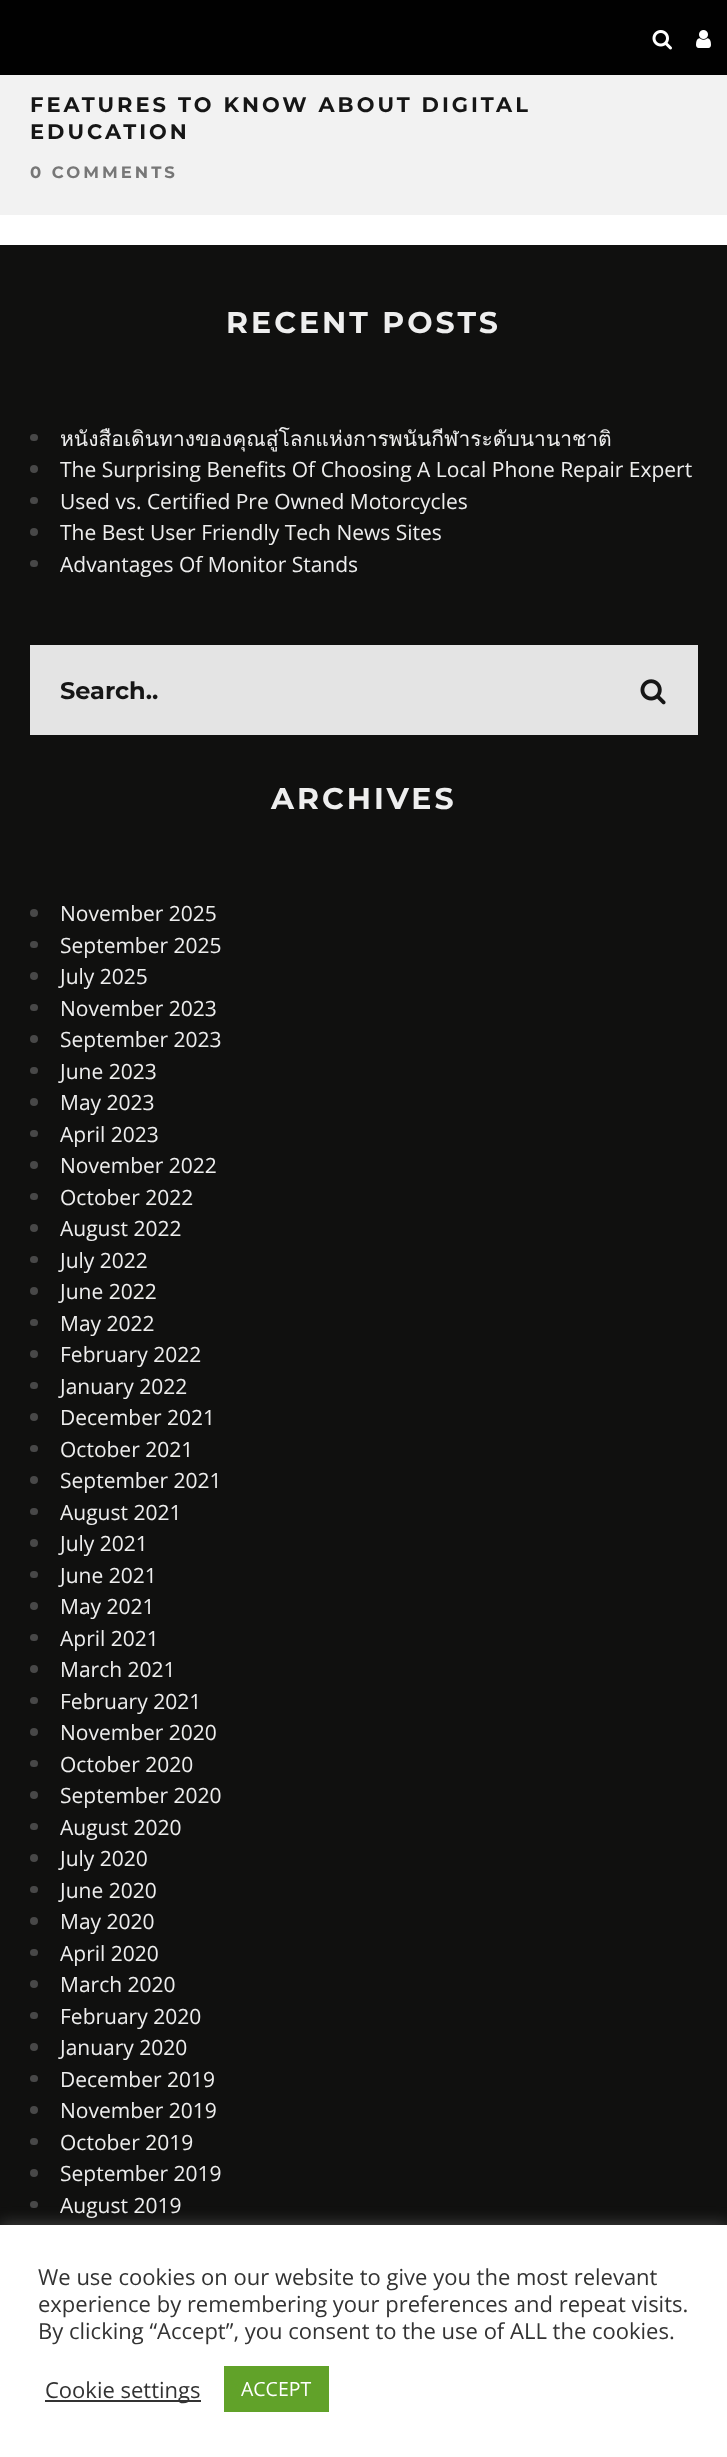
async function draw(canvas) {
	canvas.width = 727;
	canvas.height = 2457;
	const c = canvas.getContext('2d');
	c.miterLimit = 4;
	c.fontKerning = 'normal';
	async function loadImage(src) {
		const img = new Image();
		img.src = src;
		await img.decode();
		return img;
	}

	c.fillStyle = '#fff';
	c.fillRect(0, 0, 727, 2457);
	c.fillStyle = '#010101';
	c.fillRect(0, 0, 727, 75);
	c.drawImage(await loadImage('img1.png'), 652, 30, 20, 20);
	c.drawImage(await loadImage('img2.png'), 696, 30, 15, 18);
	c.fillStyle = '#f2f2f2';
	c.fillRect(0, 75, 727, 140);
	c.letterSpacing = '3px';
	c.font = 'bold 21px Montserrat';
	c.fillStyle = '#161616';
	c.fillText('FEATURES TO KNOW ABOUT DIGITAL', 30, 112);
	c.fillText('EDUCATION', 30, 139);
	c.font = 'bold 16.5px Montserrat';
	c.fillStyle = '#777';
	c.fillText('0 COMMENTS', 30, 178);
	c.fillStyle = '#10100f';
	c.fillRect(0, 245, 727, 1980);
	c.font = 'bold 30px Montserrat';
	c.fillStyle = '#eee';
	c.fillText('RECENT POSTS', 226, 333);
	c.fillStyle = '#484848';
	c.beginPath();
	c.roundRect(30, 434, 8, 7, 3.5);
	c.fill();
	c.letterSpacing = '0px';
	c.font = '21px Loma';
	c.fillStyle = '#eee';
	c.fillText('หนังสือเดินทางของคุณสู่โลกแห่งการพนันกีฬาระดับนานาชาติ', 60, 446);
	c.fillStyle = '#484848';
	c.beginPath();
	c.arc(34, 469, 4, 0, 2 * Math.PI);
	c.fill();
	c.font = '21px Open Sans';
	c.fillStyle = '#eee';
	c.fillText('The Surprising Benefits Of Choosing A Local Phone Repair Expert', 60, 477);
	c.fillStyle = '#484848';
	c.beginPath();
	c.roundRect(30, 497, 8, 7, 3.5);
	c.fill();
	c.fillStyle = '#eee';
	c.fillText('Used vs. Certified Pre Owned Motorcycles', 60, 509);
	c.fillStyle = '#484848';
	c.beginPath();
	c.arc(34, 532, 4, 0, 2 * Math.PI);
	c.fill();
	c.fillStyle = '#eee';
	c.fillText('The Best User Friendly Tech News Sites', 60, 540);
	c.fillStyle = '#484848';
	c.beginPath();
	c.roundRect(30, 560, 8, 7, 3.5);
	c.fill();
	c.fillStyle = '#eee';
	c.fillText('Advantages Of Monitor Stands', 60, 572);
	c.fillStyle = '#e4e4e4';
	c.fillRect(30, 645, 668, 90);
	c.font = 'bold 24px Montserrat';
	c.fillStyle = '#161616';
	c.fillText('Search..', 60, 699);
	c.drawImage(await loadImage('img3.png'), 640, 679, 26, 26);
	c.letterSpacing = '3px';
	c.font = 'bold 30px Montserrat';
	c.fillStyle = '#eee';
	c.fillText('ARCHIVES', 271, 809);
	c.fillStyle = '#484848';
	c.beginPath();
	c.arc(34, 913, 4, 0, 2 * Math.PI);
	c.fill();
	c.letterSpacing = '0px';
	c.font = '21px Open Sans';
	c.fillStyle = '#eee';
	c.fillText('November 2025', 60, 921);
	c.fillStyle = '#484848';
	c.beginPath();
	c.roundRect(30, 941, 8, 7, 3.5);
	c.fill();
	c.fillStyle = '#eee';
	c.fillText('September 2025', 60, 953);
	c.fillStyle = '#484848';
	c.beginPath();
	c.arc(34, 976, 4, 0, 2 * Math.PI);
	c.fill();
	c.fillStyle = '#eee';
	c.fillText('July 2025', 60, 984);
	c.fillStyle = '#484848';
	c.beginPath();
	c.roundRect(30, 1004, 8, 7, 3.5);
	c.fill();
	c.fillStyle = '#eee';
	c.fillText('November 2023', 60, 1016);
	c.fillStyle = '#484848';
	c.beginPath();
	c.arc(34, 1039, 4, 0, 2 * Math.PI);
	c.fill();
	c.fillStyle = '#eee';
	c.fillText('September 2023', 60, 1047);
	c.fillStyle = '#484848';
	c.beginPath();
	c.roundRect(30, 1067, 8, 7, 3.5);
	c.fill();
	c.fillStyle = '#eee';
	c.fillText('June 2023', 60, 1079);
	c.fillStyle = '#484848';
	c.beginPath();
	c.arc(34, 1102, 4, 0, 2 * Math.PI);
	c.fill();
	c.fillStyle = '#eee';
	c.fillText('May 2023', 60, 1110);
	c.fillStyle = '#484848';
	c.beginPath();
	c.roundRect(30, 1130, 8, 7, 3.5);
	c.fill();
	c.fillStyle = '#eee';
	c.fillText('April 2023', 60, 1142);
	c.fillStyle = '#484848';
	c.beginPath();
	c.arc(34, 1165, 4, 0, 2 * Math.PI);
	c.fill();
	c.fillStyle = '#eee';
	c.fillText('November 2022', 60, 1173);
	c.fillStyle = '#484848';
	c.beginPath();
	c.roundRect(30, 1193, 8, 7, 3.5);
	c.fill();
	c.fillStyle = '#eee';
	c.fillText('October 2022', 60, 1205);
	c.fillStyle = '#484848';
	c.beginPath();
	c.arc(34, 1228, 4, 0, 2 * Math.PI);
	c.fill();
	c.fillStyle = '#eee';
	c.fillText('August 2022', 60, 1236);
	c.fillStyle = '#484848';
	c.beginPath();
	c.roundRect(30, 1256, 8, 7, 3.5);
	c.fill();
	c.fillStyle = '#eee';
	c.fillText('July 2022', 60, 1268);
	c.fillStyle = '#484848';
	c.beginPath();
	c.arc(34, 1291, 4, 0, 2 * Math.PI);
	c.fill();
	c.fillStyle = '#eee';
	c.fillText('June 2022', 60, 1299);
	c.fillStyle = '#484848';
	c.beginPath();
	c.roundRect(30, 1319, 8, 7, 3.5);
	c.fill();
	c.fillStyle = '#eee';
	c.fillText('May 2022', 60, 1331);
	c.fillStyle = '#484848';
	c.beginPath();
	c.arc(34, 1354, 4, 0, 2 * Math.PI);
	c.fill();
	c.fillStyle = '#eee';
	c.fillText('February 2022', 60, 1362);
	c.fillStyle = '#484848';
	c.beginPath();
	c.roundRect(30, 1382, 8, 7, 3.5);
	c.fill();
	c.fillStyle = '#eee';
	c.fillText('January 2022', 60, 1394);
	c.fillStyle = '#484848';
	c.beginPath();
	c.arc(34, 1417, 4, 0, 2 * Math.PI);
	c.fill();
	c.fillStyle = '#eee';
	c.fillText('December 2021', 60, 1425);
	c.fillStyle = '#484848';
	c.beginPath();
	c.roundRect(30, 1445, 8, 7, 3.5);
	c.fill();
	c.fillStyle = '#eee';
	c.fillText('October 2021', 60, 1457);
	c.fillStyle = '#484848';
	c.beginPath();
	c.arc(34, 1480, 4, 0, 2 * Math.PI);
	c.fill();
	c.fillStyle = '#eee';
	c.fillText('September 2021', 60, 1488);
	c.fillStyle = '#484848';
	c.beginPath();
	c.roundRect(30, 1508, 8, 7, 3.5);
	c.fill();
	c.fillStyle = '#eee';
	c.fillText('August 2021', 60, 1520);
	c.fillStyle = '#484848';
	c.beginPath();
	c.arc(34, 1543, 4, 0, 2 * Math.PI);
	c.fill();
	c.fillStyle = '#eee';
	c.fillText('July 2021', 60, 1551);
	c.fillStyle = '#484848';
	c.beginPath();
	c.roundRect(30, 1571, 8, 7, 3.5);
	c.fill();
	c.fillStyle = '#eee';
	c.fillText('June 2021', 60, 1583);
	c.fillStyle = '#484848';
	c.beginPath();
	c.arc(34, 1606, 4, 0, 2 * Math.PI);
	c.fill();
	c.fillStyle = '#eee';
	c.fillText('May 2021', 60, 1614);
	c.fillStyle = '#484848';
	c.beginPath();
	c.roundRect(30, 1634, 8, 7, 3.5);
	c.fill();
	c.fillStyle = '#eee';
	c.fillText('April 2021', 60, 1646);
	c.fillStyle = '#484848';
	c.beginPath();
	c.arc(34, 1669, 4, 0, 2 * Math.PI);
	c.fill();
	c.fillStyle = '#eee';
	c.fillText('March 2021', 60, 1677);
	c.fillStyle = '#484848';
	c.beginPath();
	c.roundRect(30, 1697, 8, 7, 3.5);
	c.fill();
	c.fillStyle = '#eee';
	c.fillText('February 2021', 60, 1709);
	c.fillStyle = '#484848';
	c.beginPath();
	c.arc(34, 1732, 4, 0, 2 * Math.PI);
	c.fill();
	c.fillStyle = '#eee';
	c.fillText('November 2020', 60, 1740);
	c.fillStyle = '#484848';
	c.beginPath();
	c.roundRect(30, 1760, 8, 7, 3.5);
	c.fill();
	c.fillStyle = '#eee';
	c.fillText('October 2020', 60, 1772);
	c.fillStyle = '#484848';
	c.beginPath();
	c.arc(34, 1795, 4, 0, 2 * Math.PI);
	c.fill();
	c.fillStyle = '#eee';
	c.fillText('September 2020', 60, 1803);
	c.fillStyle = '#484848';
	c.beginPath();
	c.roundRect(30, 1823, 8, 7, 3.5);
	c.fill();
	c.fillStyle = '#eee';
	c.fillText('August 2020', 60, 1835);
	c.fillStyle = '#484848';
	c.beginPath();
	c.arc(34, 1858, 4, 0, 2 * Math.PI);
	c.fill();
	c.fillStyle = '#eee';
	c.fillText('July 2020', 60, 1866);
	c.fillStyle = '#484848';
	c.beginPath();
	c.roundRect(30, 1886, 8, 7, 3.5);
	c.fill();
	c.fillStyle = '#eee';
	c.fillText('June 2020', 60, 1898);
	c.fillStyle = '#484848';
	c.beginPath();
	c.arc(34, 1921, 4, 0, 2 * Math.PI);
	c.fill();
	c.fillStyle = '#eee';
	c.fillText('May 2020', 60, 1929);
	c.fillStyle = '#484848';
	c.beginPath();
	c.roundRect(30, 1949, 8, 7, 3.5);
	c.fill();
	c.fillStyle = '#eee';
	c.fillText('April 2020', 60, 1961);
	c.fillStyle = '#484848';
	c.beginPath();
	c.arc(34, 1984, 4, 0, 2 * Math.PI);
	c.fill();
	c.fillStyle = '#eee';
	c.fillText('March 2020', 60, 1992);
	c.fillStyle = '#484848';
	c.beginPath();
	c.roundRect(30, 2012, 8, 7, 3.5);
	c.fill();
	c.fillStyle = '#eee';
	c.fillText('February 2020', 60, 2024);
	c.fillStyle = '#484848';
	c.beginPath();
	c.arc(34, 2047, 4, 0, 2 * Math.PI);
	c.fill();
	c.fillStyle = '#eee';
	c.fillText('January 2020', 60, 2055);
	c.fillStyle = '#484848';
	c.beginPath();
	c.roundRect(30, 2075, 8, 7, 3.5);
	c.fill();
	c.fillStyle = '#eee';
	c.fillText('December 2019', 60, 2087);
	c.fillStyle = '#484848';
	c.beginPath();
	c.arc(34, 2110, 4, 0, 2 * Math.PI);
	c.fill();
	c.fillStyle = '#eee';
	c.fillText('November 2019', 60, 2118);
	c.fillStyle = '#484848';
	c.beginPath();
	c.roundRect(30, 2138, 8, 7, 3.5);
	c.fill();
	c.fillStyle = '#eee';
	c.fillText('October 2019', 60, 2150);
	c.fillStyle = '#484848';
	c.beginPath();
	c.arc(34, 2173, 4, 0, 2 * Math.PI);
	c.fill();
	c.fillStyle = '#eee';
	c.fillText('September 2019', 60, 2181);
	c.fillStyle = '#484848';
	c.beginPath();
	c.roundRect(30, 2201, 8, 7, 3.5);
	c.fill();
	c.fillStyle = '#eee';
	c.fillText('August 2019', 60, 2213);
	c.fillStyle = '#acabab4d';
	c.filter = 'blur(7.5px)';
	c.beginPath();
	c.rect(0, 2223, 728, 233);
	c.fill();
	c.filter = 'none';
	c.fillStyle = '#fff';
	c.fillRect(0, 2225, 727, 232);
	c.font = '22px Open Sans';
	c.fillStyle = '#333';
	for (const [text, x, y] of [
		['We use cookies on our website to give you the most relevant', 38, 2285],
		['experience by remembering your preferences and repeat visits.', 38, 2312],
		['By clicking “Accept”, you consent to the use of ALL the cookies.', 38, 2339],
	]) {
		c.fillText(text, x, y);
	}
	c.fillRect(45, 2400, 156, 2);
	c.fillText('Cookie settings', 45, 2398);
	c.fillStyle = '#61a229';
	c.fillRect(224, 2366, 105, 46);
	c.font = '19.5px Open Sans';
	c.fillStyle = '#fff';
	c.fillText('ACCEPT', 241, 2396);
}

draw(document.querySelector('canvas'));
